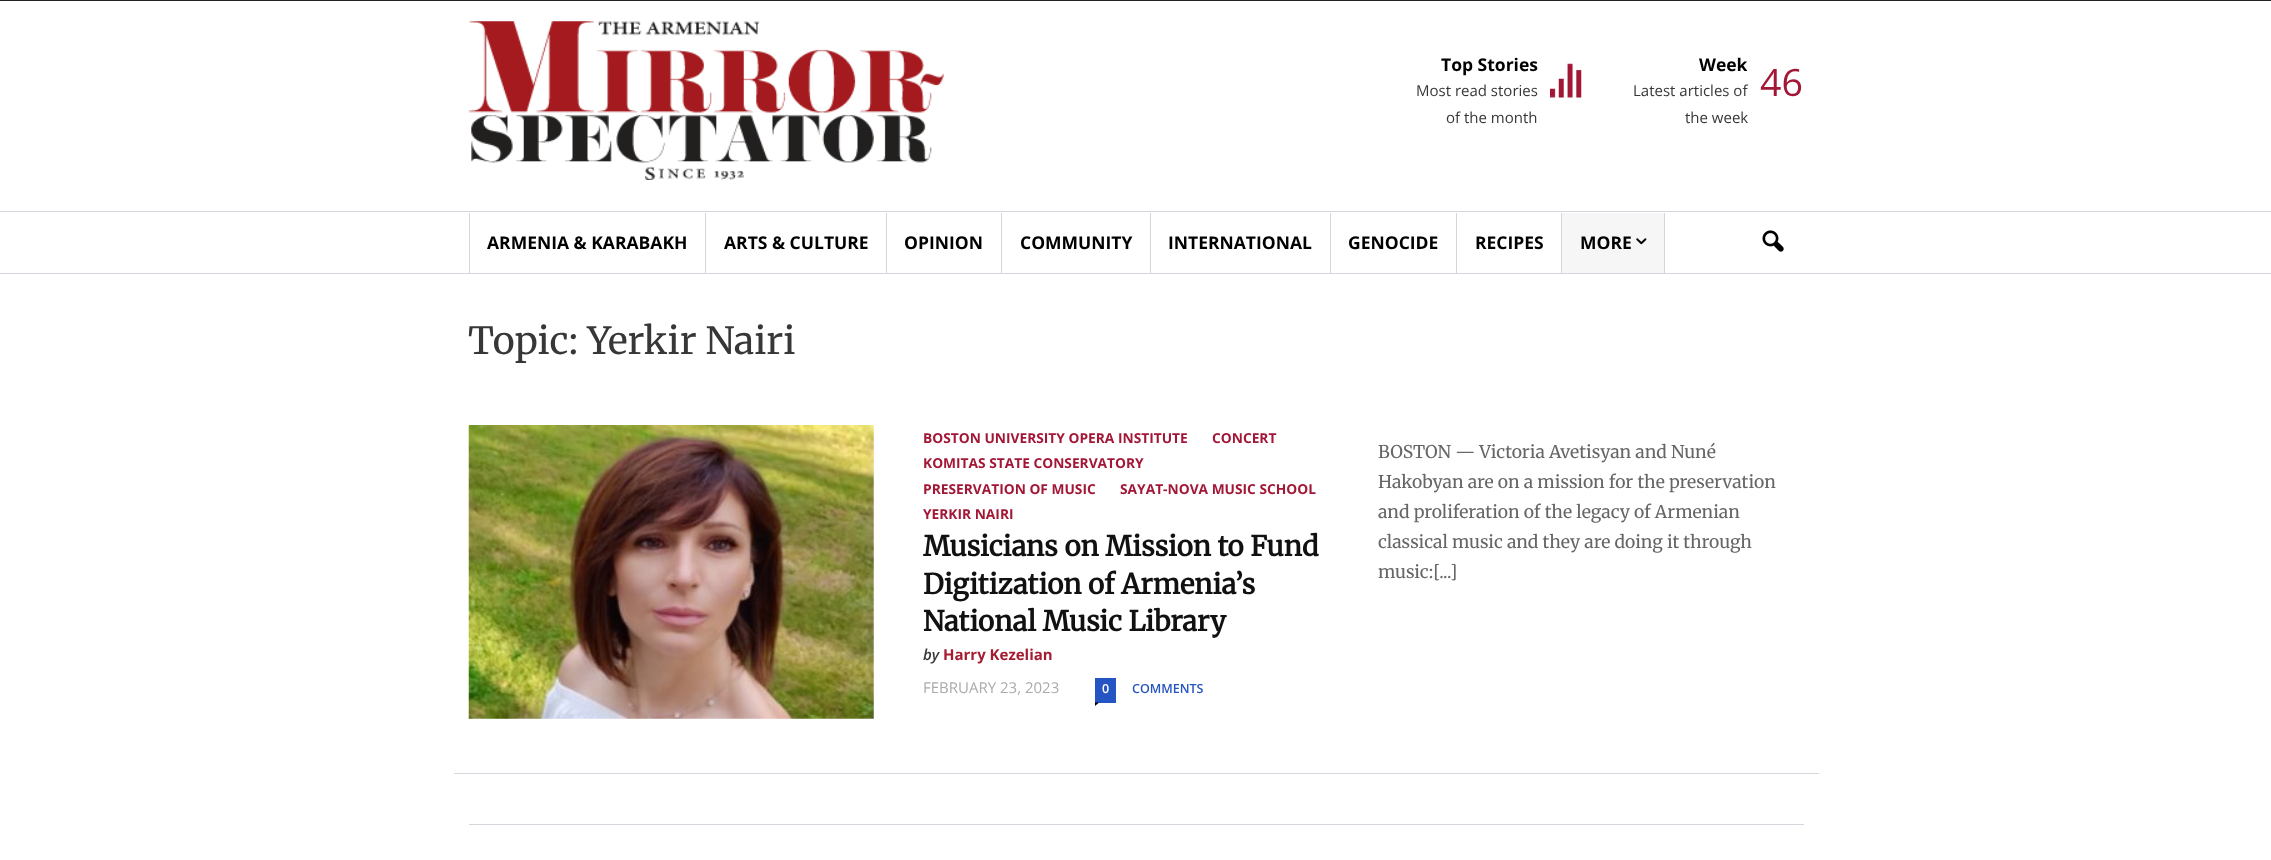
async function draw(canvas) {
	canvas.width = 2271;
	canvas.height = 860;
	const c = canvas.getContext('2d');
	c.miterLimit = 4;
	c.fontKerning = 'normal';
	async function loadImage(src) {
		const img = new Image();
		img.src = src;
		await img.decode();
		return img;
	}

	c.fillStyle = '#fff';
	c.fillRect(0, 0, 2271, 860);
	c.fillStyle = '#222';
	c.fillRect(0, 0, 2271, 1);
	c.drawImage(await loadImage('img1.png'), 468, 21, 476, 159);
	c.font = 'bold 17.5px Open Sans';
	c.fillStyle = '#000';
	c.fillText('Top Stories', 1441, 71);
	c.font = '15px Open Sans';
	c.fillStyle = '#383737';
	c.fillText('Most read stories', 1416, 96);
	c.fillText('of the month', 1446, 123);
	c.drawImage(await loadImage('img2.png'), 1550, 63, 32, 35);
	c.font = 'bold 17.5px Open Sans';
	c.fillStyle = '#000';
	c.fillText('Week', 1699, 71);
	c.font = '15px Open Sans';
	c.fillStyle = '#383737';
	c.fillText('Latest articles of', 1633, 96);
	c.fillText('the week', 1685, 123);
	c.font = '37.5px Open Sans';
	c.fillStyle = '#a21636';
	c.fillText('46', 1760, 96);
	for (const [x, y, w, h, color] of [
		[0, 211, 2271, 1, '#d3d6dc'],
		[0, 273, 2271, 1, '#d3d6dc'],
		[469, 213, 1, 60, '#d3d6dc'],
	]) {
		c.fillStyle = color;
		c.fillRect(x, y, w, h);
	}
	c.font = 'bold 17.5px Open Sans';
	c.fillStyle = '#000';
	c.fillText('ARMENIA & KARABAKH', 487, 249);
	c.fillStyle = '#d3d6dc';
	c.fillRect(705, 213, 1, 60);
	c.fillStyle = '#000';
	c.fillText('ARTS & CULTURE', 724, 249);
	c.fillStyle = '#d3d6dc';
	c.fillRect(886, 213, 1, 60);
	c.fillStyle = '#000';
	c.fillText('OPINION', 904, 249);
	c.fillStyle = '#d3d6dc';
	c.fillRect(1001, 213, 1, 60);
	c.fillStyle = '#000';
	c.fillText('COMMUNITY', 1020, 249);
	c.fillStyle = '#d3d6dc';
	c.fillRect(1150, 213, 1, 60);
	c.fillStyle = '#000';
	c.fillText('INTERNATIONAL', 1168, 249);
	c.fillStyle = '#d3d6dc';
	c.fillRect(1330, 213, 1, 60);
	c.fillStyle = '#000';
	c.fillText('GENOCIDE', 1348, 249);
	c.fillStyle = '#d3d6dc';
	c.fillRect(1456, 213, 1, 60);
	c.fillStyle = '#000';
	c.fillText('RECIPES', 1475, 249);
	for (const [x, y, w, h, color] of [
		[1562, 213, 102, 60, '#f6f6f6'],
		[1664, 213, 1, 60, '#d3d6dc'],
		[1561, 213, 1, 60, '#d3d6dc'],
	]) {
		c.fillStyle = color;
		c.fillRect(x, y, w, h);
	}
	c.fillStyle = '#000';
	c.fillText('MORE', 1580, 249);
	c.drawImage(await loadImage('img3.png'), 1636, 238, 11, 7);
	c.drawImage(await loadImage('img4.png'), 1762, 230, 22, 22);
	c.font = '300 37.5px Merriweather';
	c.fillStyle = '#383737';
	c.fillText('Topic: Yerkir Nairi', 468, 354);
	c.fillStyle = '#d3d6dc';
	c.fillRect(454, 773, 1365, 1);
	c.drawImage(await loadImage('img5.png'), 468, 425, 406, 294);
	c.font = 'bold 13.75px Open Sans';
	c.fillStyle = '#a21636';
	for (const [text, x, y] of [
		['BOSTON UNIVERSITY OPERA INSTITUTE', 923, 443],
		['CONCERT', 1212, 443],
		['KOMITAS STATE CONSERVATORY', 923, 468],
		['PRESERVATION OF MUSIC', 923, 494],
		['SAYAT-NOVA MUSIC SCHOOL', 1120, 494],
		['YERKIR NAIRI', 923, 519],
	]) {
		c.fillText(text, x, y);
	}
	c.font = 'bold 27.5px Merriweather';
	c.fillStyle = '#111';
	for (const [text, x, y] of [
		['Musicians on Mission to Fund', 923, 556],
		['Digitization of Armenia’s', 923, 594],
		['National Music Library', 923, 631],
	]) {
		c.fillText(text, x, y);
	}
	c.font = 'italic 600 15px Open Sans';
	c.fillStyle = '#383737';
	c.fillText('by', 923, 660);
	c.font = 'bold 15px Open Sans';
	c.fillStyle = '#a51c30';
	c.fillText('Harry Kezelian', 943, 660);
	c.font = '15px Open Sans';
	c.fillStyle = '#aaa';
	c.fillText('FEBRUARY 23, 2023', 923, 693);
	c.fillStyle = '#2554c3';
	c.fillRect(1095, 678, 21, 25);
	c.font = '600 12.5px Open Sans';
	c.fillStyle = '#fff';
	c.fillText('0', 1102, 693);
	c.fillStyle = '#2554c3';
	c.fillText('COMMENTS', 1132, 693);
	c.fillStyle = '#000';
	c.beginPath();
	c.moveTo(1095, 702.5);
	c.lineTo(1099, 702.5);
	c.lineTo(1095, 706);
	c.closePath();
	c.fill();
	c.font = '300 17.5px Merriweather';
	c.fillStyle = '#666';
	for (const [text, x, y] of [
		['BOSTON — Victoria Avetisyan and Nuné', 1378, 458],
		['Hakobyan are on a mission for the preservation', 1378, 488],
		['and proliferation of the legacy of Armenian', 1378, 518],
		['classical music and they are doing it through', 1378, 548],
		['music:[...]', 1378, 578],
	]) {
		c.fillText(text, x, y);
	}
	c.fillStyle = '#d3d6dc';
	c.fillRect(469, 824, 1335, 1);
}

draw(document.querySelector('canvas'));
